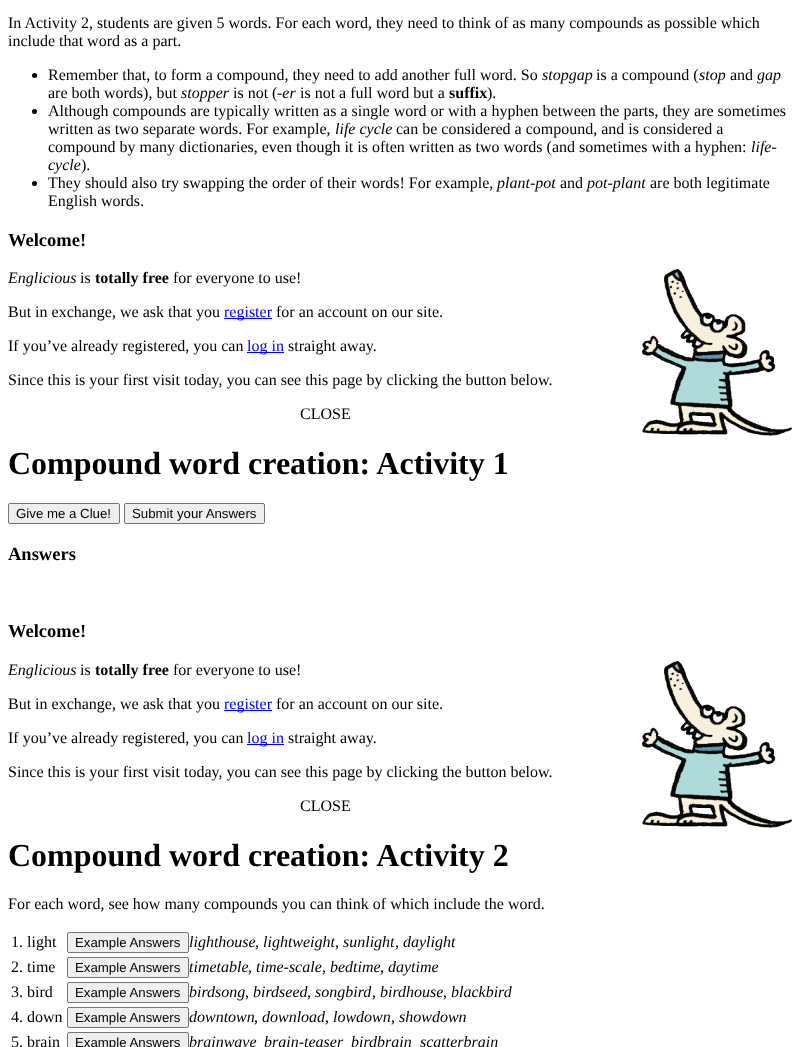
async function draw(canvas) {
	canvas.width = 800;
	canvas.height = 1047;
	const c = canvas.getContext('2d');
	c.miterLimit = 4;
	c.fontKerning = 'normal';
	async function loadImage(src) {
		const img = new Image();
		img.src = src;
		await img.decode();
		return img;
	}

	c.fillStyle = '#fff';
	c.fillRect(0, 0, 800, 1047);
	c.font = '16px Liberation Serif';
	c.fillStyle = '#000';
	c.fillText('In Activity 2, students are given 5 words. For each word, they need to think of as many compounds as possible which', 8, 28);
	c.fillText('include that word as a part.', 8, 46);
	c.beginPath();
	c.arc(34.5, 75.5, 2.5, 0, 2 * Math.PI);
	c.fill();
	c.fillText('Remember that, to form a compound, they need to add another full word. So', 48, 80);
	c.font = 'italic 16px Liberation Serif';
	c.fillText('stopgap', 542, 80);
	c.font = '16px Liberation Serif';
	c.fillText('is a compound (', 596, 80);
	c.font = 'italic 16px Liberation Serif';
	c.fillText('stop', 699, 80);
	c.font = '16px Liberation Serif';
	c.fillText('and', 730, 80);
	c.font = 'italic 16px Liberation Serif';
	c.fillText('gap', 757, 80);
	c.font = '16px Liberation Serif';
	c.fillText('are both words), but', 48, 98);
	c.font = 'italic 16px Liberation Serif';
	c.fillText('stopper', 181, 98);
	c.font = '16px Liberation Serif';
	c.fillText('is not (', 233, 98);
	c.font = 'italic 16px Liberation Serif';
	c.fillText('-er', 277, 98);
	c.font = '16px Liberation Serif';
	c.fillText('is not a full word but a', 300, 98);
	c.font = 'bold 16px Liberation Serif';
	c.fillText('suffix', 449, 98);
	c.font = '16px Liberation Serif';
	c.fillText(').', 487, 98);
	c.beginPath();
	c.arc(34.5, 111.5, 2.5, 0, 2 * Math.PI);
	c.fill();
	c.fillText('Although compounds are typically written as a single word or with a hyphen between the parts, they are sometimes', 48, 116);
	c.fillText('written as two separate words. For example,', 48, 134);
	c.font = 'italic 16px Liberation Serif';
	c.fillText('life cycle', 335, 134);
	c.font = '16px Liberation Serif';
	c.fillText('can be considered a compound, and is considered a', 396, 134);
	c.fillText('compound by many dictionaries, even though it is often written as two words (and sometimes with a hyphen:', 48, 152);
	c.font = 'italic 16px Liberation Serif';
	c.fillText('life-', 751, 152);
	c.fillText('cycle', 48, 170);
	c.font = '16px Liberation Serif';
	c.fillText(').', 81, 170);
	c.beginPath();
	c.arc(34.5, 183.5, 2.5, 0, 2 * Math.PI);
	c.fill();
	c.fillText('They should also try swapping the order of their words! For example,', 48, 188);
	c.font = 'italic 16px Liberation Serif';
	c.fillText('plant-pot', 497, 188);
	c.font = '16px Liberation Serif';
	c.fillText('and', 560, 188);
	c.font = 'italic 16px Liberation Serif';
	c.fillText('pot-plant', 587, 188);
	c.font = '16px Liberation Serif';
	c.fillText('are both legitimate', 650, 188);
	c.fillText('English words.', 48, 206);
	c.font = 'bold 18.5px Liberation Serif';
	c.fillText('Welcome!', 8, 246);
	c.font = 'italic 16px Liberation Serif';
	c.fillText('Englicious', 8, 283);
	c.font = '16px Liberation Serif';
	c.fillText('is', 80, 283);
	c.font = 'bold 16px Liberation Serif';
	c.fillText('totally free', 95, 283);
	c.font = '16px Liberation Serif';
	c.fillText('for everyone to use!', 173, 283);
	c.drawImage(await loadImage('img1.png'), 642, 269, 150, 167);
	c.fillText('But in exchange, we ask that you', 8, 317);
	c.fillStyle = '#00e';
	c.fillRect(224, 318, 48, 1);
	c.fillText('register', 224, 317);
	c.fillStyle = '#000';
	c.fillText('for an account on our site.', 276, 317);
	c.fillText('If you’ve already registered, you can', 8, 351);
	c.fillStyle = '#00e';
	c.fillRect(247, 352, 37, 1);
	c.fillText('log in', 247, 351);
	c.fillStyle = '#000';
	for (const [text, x, y] of [
		['straight away.', 288, 351],
		['Since this is your first visit today, you can see this page by clicking the button below.', 8, 385],
		['CLOSE', 300, 419],
	]) {
		c.fillText(text, x, y);
	}
	c.font = 'bold 32px Liberation Serif';
	c.fillText('Compound word creation: Activity 1', 8, 474);
	c.fillStyle = '#efefef';
	c.beginPath();
	c.roundRect(8.5, 503.5, 111, 20, 1.5);
	c.fill();
	c.strokeStyle = '#767676';
	c.stroke();
	c.font = '13.25px Liberation Sans';
	c.fillStyle = '#000';
	c.fillText('Give me a Clue!', 16, 518);
	c.fillStyle = '#efefef';
	c.beginPath();
	c.roundRect(124.5, 503.5, 140, 20, 1.5);
	c.fill();
	c.stroke();
	c.fillStyle = '#000';
	c.fillText('Submit your Answers', 132, 518);
	c.font = 'bold 18.5px Liberation Serif';
	c.fillText('Answers', 8, 560);
	c.fillText('Welcome!', 8, 637);
	c.font = 'italic 16px Liberation Serif';
	c.fillText('Englicious', 8, 675);
	c.font = '16px Liberation Serif';
	c.fillText('is', 80, 675);
	c.font = 'bold 16px Liberation Serif';
	c.fillText('totally free', 95, 675);
	c.font = '16px Liberation Serif';
	c.fillText('for everyone to use!', 173, 675);
	c.drawImage(await loadImage('img1.png'), 642, 661, 150, 167);
	c.fillText('But in exchange, we ask that you', 8, 709);
	c.fillStyle = '#00e';
	c.fillRect(224, 710, 48, 1);
	c.fillText('register', 224, 709);
	c.fillStyle = '#000';
	c.fillText('for an account on our site.', 276, 709);
	c.fillText('If you’ve already registered, you can', 8, 743);
	c.fillStyle = '#00e';
	c.fillRect(247, 744, 37, 1);
	c.fillText('log in', 247, 743);
	c.fillStyle = '#000';
	for (const [text, x, y] of [
		['straight away.', 288, 743],
		['Since this is your first visit today, you can see this page by clicking the button below.', 8, 777],
		['CLOSE', 300, 811],
	]) {
		c.fillText(text, x, y);
	}
	c.font = 'bold 32px Liberation Serif';
	c.fillText('Compound word creation: Activity 2', 8, 866);
	c.font = '16px Liberation Serif';
	c.fillText('For each word, see how many compounds you can think of which include the word.', 8, 909);
	c.fillText('1. light', 11, 947);
	c.fillStyle = '#efefef';
	c.beginPath();
	c.roundRect(67.5, 932.5, 121, 20, 1.5);
	c.fill();
	c.stroke();
	c.font = '13.25px Liberation Sans';
	c.fillStyle = '#000';
	c.fillText('Example Answers', 75, 947);
	c.font = 'italic 16px Liberation Serif';
	c.fillText('lighthouse', 189, 947);
	c.font = '16px Liberation Serif';
	c.fillText(',', 255, 947);
	c.font = 'italic 16px Liberation Serif';
	c.fillText('lightweight', 263, 947);
	c.font = '16px Liberation Serif';
	c.fillText(',', 335, 947);
	c.font = 'italic 16px Liberation Serif';
	c.fillText('sunlight', 343, 947);
	c.font = '16px Liberation Serif';
	c.fillText(',', 395, 947);
	c.font = 'italic 16px Liberation Serif';
	c.fillText('daylight', 403, 947);
	c.font = '16px Liberation Serif';
	c.fillText('2. time', 11, 972);
	c.fillStyle = '#efefef';
	c.beginPath();
	c.roundRect(67.5, 957.5, 121, 20, 1.5);
	c.fill();
	c.stroke();
	c.font = '13.25px Liberation Sans';
	c.fillStyle = '#000';
	c.fillText('Example Answers', 75, 972);
	c.font = 'italic 16px Liberation Serif';
	c.fillText('timetable', 189, 972);
	c.font = '16px Liberation Serif';
	c.fillText(',', 248, 972);
	c.font = 'italic 16px Liberation Serif';
	c.fillText('time-scale', 256, 972);
	c.font = '16px Liberation Serif';
	c.fillText(',', 322, 972);
	c.font = 'italic 16px Liberation Serif';
	c.fillText('bedtime', 330, 972);
	c.font = '16px Liberation Serif';
	c.fillText(',', 380, 972);
	c.font = 'italic 16px Liberation Serif';
	c.fillText('daytime', 388, 972);
	c.font = '16px Liberation Serif';
	c.fillText('3. bird', 11, 997);
	c.fillStyle = '#efefef';
	c.beginPath();
	c.roundRect(67.5, 982.5, 121, 20, 1.5);
	c.fill();
	c.stroke();
	c.font = '13.25px Liberation Sans';
	c.fillStyle = '#000';
	c.fillText('Example Answers', 75, 997);
	c.font = 'italic 16px Liberation Serif';
	c.fillText('birdsong', 189, 997);
	c.font = '16px Liberation Serif';
	c.fillText(',', 245, 997);
	c.font = 'italic 16px Liberation Serif';
	c.fillText('birdseed', 253, 997);
	c.font = '16px Liberation Serif';
	c.fillText(',', 307, 997);
	c.font = 'italic 16px Liberation Serif';
	c.fillText('songbird', 315, 997);
	c.font = '16px Liberation Serif';
	c.fillText(',', 372, 997);
	c.font = 'italic 16px Liberation Serif';
	c.fillText('birdhouse', 380, 997);
	c.font = '16px Liberation Serif';
	c.fillText(',', 443, 997);
	c.font = 'italic 16px Liberation Serif';
	c.fillText('blackbird', 451, 997);
	c.font = '16px Liberation Serif';
	c.fillText('4. down', 11, 1022);
	c.fillStyle = '#efefef';
	c.beginPath();
	c.roundRect(67.5, 1007.5, 121, 20, 1.5);
	c.fill();
	c.stroke();
	c.font = '13.25px Liberation Sans';
	c.fillStyle = '#000';
	c.fillText('Example Answers', 75, 1022);
	c.font = 'italic 16px Liberation Serif';
	c.fillText('downtown', 189, 1022);
	c.font = '16px Liberation Serif';
	c.fillText(',', 254, 1022);
	c.font = 'italic 16px Liberation Serif';
	c.fillText('download', 262, 1022);
	c.font = '16px Liberation Serif';
	c.fillText(',', 325, 1022);
	c.font = 'italic 16px Liberation Serif';
	c.fillText('lowdown', 333, 1022);
	c.font = '16px Liberation Serif';
	c.fillText(',', 391, 1022);
	c.font = 'italic 16px Liberation Serif';
	c.fillText('showdown', 399, 1022);
	c.font = '16px Liberation Serif';
	c.fillText('5. brain', 11, 1047);
	c.fillStyle = '#efefef';
	c.beginPath();
	c.roundRect(67.5, 1032.5, 121, 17, 1.5);
	c.fill();
	c.stroke();
	c.font = '13.25px Liberation Sans';
	c.fillStyle = '#000';
	c.fillText('Example Answers', 75, 1047);
	c.font = 'italic 16px Liberation Serif';
	for (const [text, x, y] of [
		['brainwave', 189, 1047],
		['brain-teaser', 264, 1047],
		['birdbrain', 351, 1047],
		['scatterbrain', 420, 1047],
	]) {
		c.fillText(text, x, y);
	}
}

draw(document.querySelector('canvas'));
